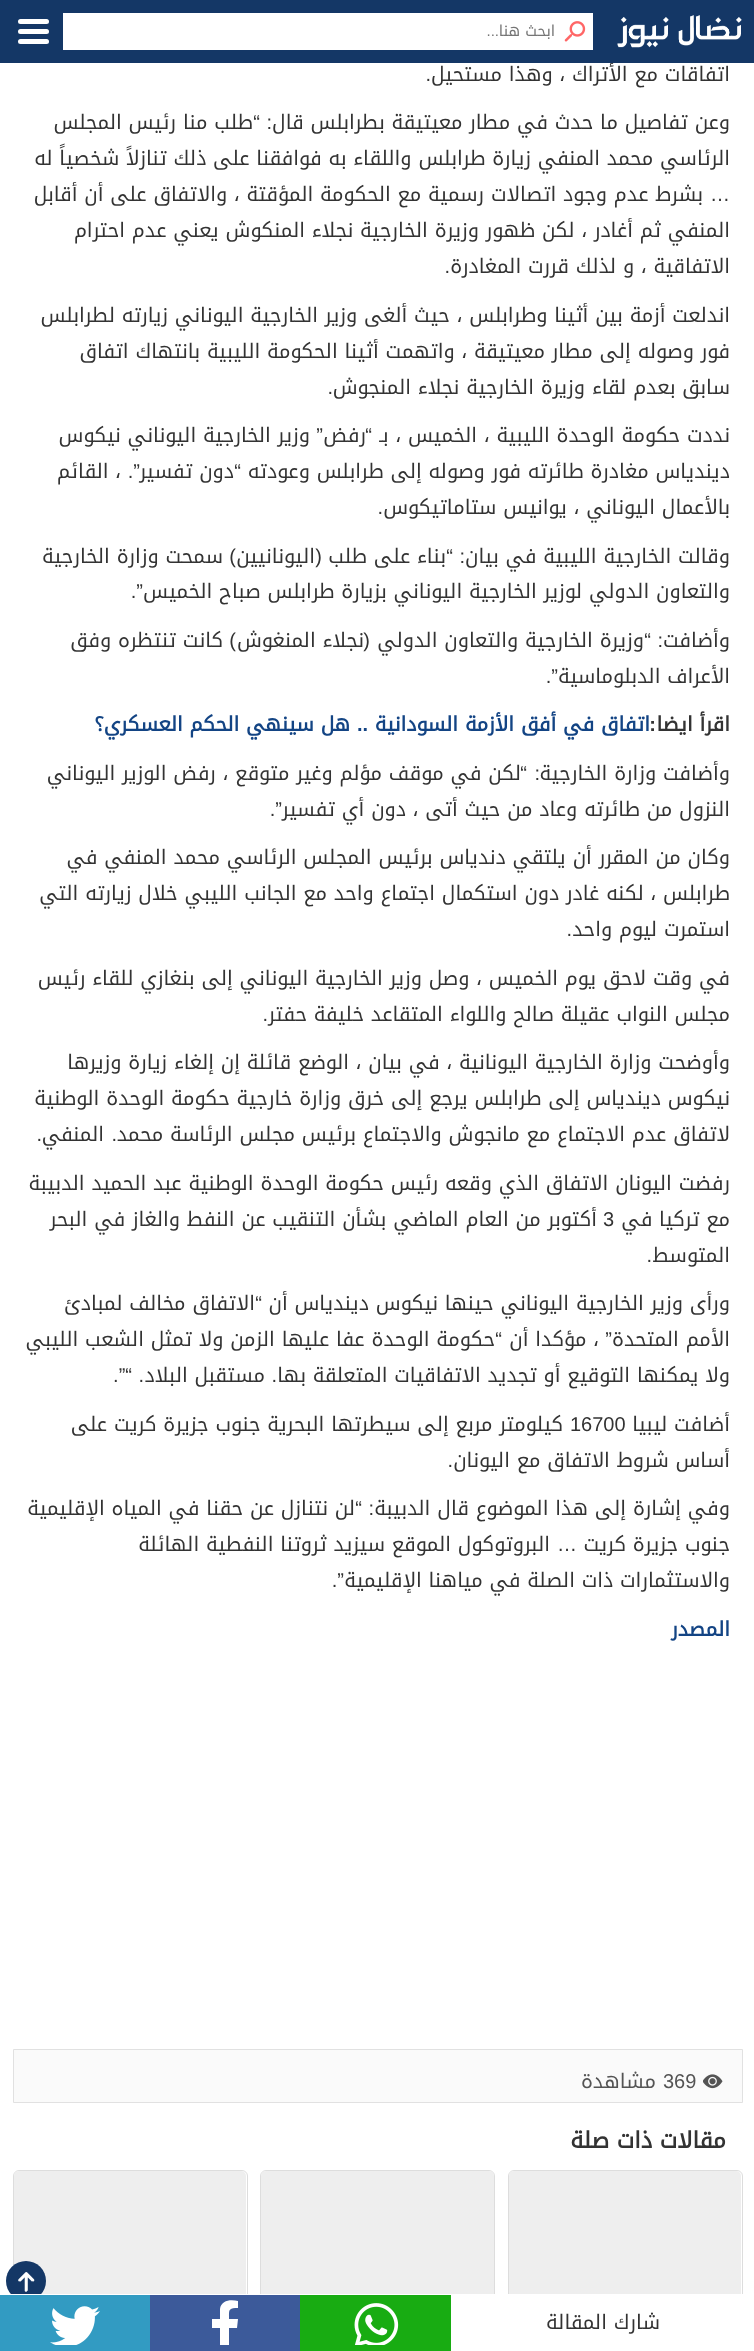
async function draw(canvas) {
	canvas.width = 754;
	canvas.height = 2351;
	const c = canvas.getContext('2d');
	c.miterLimit = 4;
	c.fontKerning = 'normal';
	async function loadImage(src) {
		const img = new Image();
		img.src = src;
		await img.decode();
		return img;
	}

	c.fillStyle = '#fff';
	c.fillRect(0, 0, 754, 2351);
	c.direction = 'rtl';
	c.font = '20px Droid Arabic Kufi';
	c.fillStyle = '#333';
	c.fillText('اتفاقات مع الأتراك ، وهذا مستحيل', 730, 81);
	c.fillStyle = '#143766';
	c.fillRect(0, 0, 754, 63);
	c.drawImage(await loadImage('img1.png'), 617, 15, 125, 33);
	c.fillStyle = '#fff';
	c.fillRect(63, 13, 530, 37);
	c.drawImage(await loadImage('img2.png'), 564, 21, 22, 21);
	c.font = '15px Droid Arabic Kufi';
	c.fillStyle = '#757575';
	c.fillText('ابحث هنا', 555, 36);
	c.font = '15px Liberation Sans';
	c.fillText('...', 499, 36);
	c.fillStyle = '#fff';
	c.beginPath();
	c.roundRect(18, 19, 31, 5, 2.5);
	c.fill();
	c.beginPath();
	c.roundRect(18, 29, 31, 5, 2.5);
	c.fill();
	c.beginPath();
	c.roundRect(18, 39, 31, 5, 2.5);
	c.fill();
	c.font = '20px Liberation Sans';
	c.fillStyle = '#333';
	c.fillText('.', 431, 81);
	c.font = '20px Droid Arabic Kufi';
	c.fillText('وعن تفاصيل ما حدث في مطار معيتيقة بطرابلس قال', 730, 129);
	c.font = '20px Liberation Sans';
	c.fillText('“', 260, 129);
	c.font = '20px Droid Arabic Kufi';
	c.fillText('طلب منا رئيس المجلس', 253, 129);
	c.font = '20px Liberation Sans';
	c.fillText(':', 272, 129);
	c.font = '20px Droid Arabic Kufi';
	c.fillText('الرئاسي محمد المنفي زيارة طرابلس واللقاء به فوافقنا على ذلك تنازلاً شخصياً له', 730, 165);
	c.font = '20px Liberation Sans';
	c.fillText('…', 730, 201);
	c.font = '20px Droid Arabic Kufi';
	for (const [text, x, y] of [
		['بشرط عدم وجود اتصالات رسمية مع الحكومة المؤقتة ، والاتفاق على أن أقابل', 703, 201],
		['المنفي ثم أغادر ، لكن ظهور وزيرة الخارجية نجلاء المنكوش يعني عدم احترام', 730, 237],
		['الاتفاقية ، و لذلك قررت المغادرة', 730, 273],
	]) {
		c.fillText(text, x, y);
	}
	c.font = '20px Liberation Sans';
	c.fillText('.', 450, 273);
	c.font = '20px Droid Arabic Kufi';
	for (const [text, x, y] of [
		['اندلعت أزمة بين أثينا وطرابلس ، حيث ألغى وزير الخارجية اليوناني زيارته لطرابلس', 730, 322],
		['فور وصوله إلى مطار معيتيقة ، واتهمت أثينا الحكومة الليبية بانتهاك اتفاق', 730, 358],
		['سابق بعدم لقاء وزيرة الخارجية نجلاء المنجوش', 730, 394],
	]) {
		c.fillText(text, x, y);
	}
	c.font = '20px Liberation Sans';
	c.fillText('.', 333, 394);
	c.font = '20px Droid Arabic Kufi';
	c.fillText('نددت حكومة الوحدة الليبية ، الخميس ، بـ', 730, 442);
	c.font = '20px Liberation Sans';
	c.fillText('“', 372, 442);
	c.font = '20px Droid Arabic Kufi';
	c.fillText('رفض', 366, 442);
	c.font = '20px Liberation Sans';
	c.fillText('”', 323, 442);
	c.font = '20px Droid Arabic Kufi';
	c.fillText('وزير الخارجية اليوناني نيكوس', 310, 442);
	c.fillText('ديندياس مغادرة طائرته فور وصوله إلى طرابلس وعودته', 730, 478);
	c.font = '20px Liberation Sans';
	c.fillText('“', 241, 478);
	c.font = '20px Droid Arabic Kufi';
	c.fillText('دون تفسير', 234, 478);
	c.font = '20px Liberation Sans';
	c.fillText('”.', 140, 478);
	c.font = '20px Droid Arabic Kufi';
	c.fillText('، القائم', 121, 478);
	c.fillText('بالأعمال اليوناني ، يوانيس ستاماتيكوس', 730, 514);
	c.font = '20px Liberation Sans';
	c.fillText('.', 383, 514);
	c.font = '20px Droid Arabic Kufi';
	c.fillText('وقالت الخارجية الليبية في بيان', 730, 563);
	c.font = '20px Liberation Sans';
	c.fillText('“', 453, 563);
	c.font = '20px Droid Arabic Kufi';
	c.fillText('بناء على طلب', 446, 563);
	c.font = '20px Liberation Sans';
	c.fillText('(', 322, 563);
	c.font = '20px Droid Arabic Kufi';
	c.fillText('اليونانيين', 315, 563);
	c.font = '20px Liberation Sans';
	c.fillText(')', 236, 563);
	c.font = '20px Droid Arabic Kufi';
	c.fillText('سمحت وزارة الخارجية', 223, 563);
	c.font = '20px Liberation Sans';
	c.fillText(':', 465, 563);
	c.font = '20px Droid Arabic Kufi';
	c.fillText('والتعاون الدولي لوزير الخارجية اليوناني بزيارة طرابلس صباح الخميس', 730, 598);
	c.font = '20px Liberation Sans';
	c.fillText('”.', 143, 598);
	c.font = '20px Droid Arabic Kufi';
	c.fillText('وأضافت', 730, 647);
	c.font = '20px Liberation Sans';
	c.fillText('“', 651, 647);
	c.font = '20px Droid Arabic Kufi';
	c.fillText('وزيرة الخارجية والتعاون الدولي', 644, 647);
	c.font = '20px Liberation Sans';
	c.fillText('(', 370, 647);
	c.font = '20px Droid Arabic Kufi';
	c.fillText('نجلاء المنغوش', 364, 647);
	c.font = '20px Liberation Sans';
	c.fillText(')', 236, 647);
	c.font = '20px Droid Arabic Kufi';
	c.fillText('كانت تنتظره وفق', 223, 647);
	c.font = '20px Liberation Sans';
	c.fillText(':', 663, 647);
	c.font = '20px Droid Arabic Kufi';
	c.fillText('الأعراف الدبلوماسية', 730, 683);
	c.font = '20px Liberation Sans';
	c.fillText('”.', 558, 683);
	c.font = 'bold 20px Droid Arabic Kufi';
	c.fillText('اقرأ ايضا', 730, 731);
	c.font = 'bold 20px Liberation Sans';
	c.fillText(':', 656, 731);
	c.font = 'bold 20px Droid Arabic Kufi';
	c.fillStyle = '#134484';
	c.fillText('اتفاق في أفق الأزمة السودانية', 650, 731);
	c.font = 'bold 20px Liberation Sans';
	c.fillText('..', 368, 731);
	c.font = 'bold 20px Droid Arabic Kufi';
	c.fillText('هل سينهي الحكم العسكري؟', 350, 731);
	c.font = '20px Droid Arabic Kufi';
	c.fillStyle = '#333';
	c.fillText('وأضافت وزارة الخارجية', 730, 780);
	c.font = '20px Liberation Sans';
	c.fillText('“', 527, 780);
	c.font = '20px Droid Arabic Kufi';
	c.fillText('لكن في موقف مؤلم وغير متوقع ، رفض الوزير اليوناني', 521, 780);
	c.font = '20px Liberation Sans';
	c.fillText(':', 540, 780);
	c.font = '20px Droid Arabic Kufi';
	c.fillText('النزول من طائرته وعاد من حيث أتى ، دون أي تفسير', 730, 816);
	c.font = '20px Liberation Sans';
	c.fillText('”.', 282, 816);
	c.font = '20px Droid Arabic Kufi';
	for (const [text, x, y] of [
		['وكان من المقرر أن يلتقي دندياس برئيس المجلس الرئاسي محمد المنفي في', 730, 864],
		['طرابلس ، لكنه غادر دون استكمال اجتماع واحد مع الجانب الليبي خلال زيارته التي', 730, 900],
		['استمرت ليوم واحد', 730, 936],
	]) {
		c.fillText(text, x, y);
	}
	c.font = '20px Liberation Sans';
	c.fillText('.', 572, 936);
	c.font = '20px Droid Arabic Kufi';
	c.fillText('في وقت لاحق يوم الخميس ، وصل وزير الخارجية اليوناني إلى بنغازي للقاء رئيس', 730, 985);
	c.fillText('مجلس النواب عقيلة صالح واللواء المتقاعد خليفة حفتر', 730, 1021);
	c.font = '20px Liberation Sans';
	c.fillText('.', 268, 1021);
	c.font = '20px Droid Arabic Kufi';
	for (const [text, x, y] of [
		['وأوضحت وزارة الخارجية اليونانية ، في بيان ، الوضع قائلة إن إلغاء زيارة وزيرها', 730, 1069],
		['نيكوس ديندياس إلى طرابلس يرجع إلى خرق وزارة خارجية حكومة الوحدة الوطنية', 730, 1105],
		['لاتفاق عدم الاجتماع مع مانجوش والاجتماع برئيس مجلس الرئاسة محمد', 730, 1141],
	]) {
		c.fillText(text, x, y);
	}
	c.font = '20px Liberation Sans';
	c.fillText('.', 117, 1141);
	c.font = '20px Droid Arabic Kufi';
	c.fillText('المنفي', 104, 1141);
	c.font = '20px Liberation Sans';
	c.fillText('.', 42, 1141);
	c.font = '20px Droid Arabic Kufi';
	c.fillText('رفضت اليونان الاتفاق الذي وقعه رئيس حكومة الوحدة الوطنية عبد الحميد الدبيبة', 730, 1190);
	c.fillText('مع تركيا في', 730, 1226);
	c.direction = 'ltr';
	c.font = '20px Liberation Sans';
	c.fillText('3', 603, 1226);
	c.direction = 'rtl';
	c.font = '20px Droid Arabic Kufi';
	c.fillText('أكتوبر من العام الماضي بشأن التنقيب عن النفط والغاز في البحر', 597, 1226);
	c.fillText('المتوسط', 730, 1262);
	c.font = '20px Liberation Sans';
	c.fillText('.', 652, 1262);
	c.font = '20px Droid Arabic Kufi';
	c.fillText('ورأى وزير الخارجية اليوناني حينها نيكوس ديندياس أن', 730, 1310);
	c.font = '20px Liberation Sans';
	c.fillText('“', 262, 1310);
	c.font = '20px Droid Arabic Kufi';
	c.fillText('الاتفاق مخالف لمبادئ', 255, 1310);
	c.fillText('الأمم المتحدة', 730, 1346);
	c.font = '20px Liberation Sans';
	c.fillText('”', 612, 1346);
	c.font = '20px Droid Arabic Kufi';
	c.fillText('، مؤكدا أن', 599, 1346);
	c.font = '20px Liberation Sans';
	c.fillText('“', 502, 1346);
	c.font = '20px Droid Arabic Kufi';
	c.fillText('حكومة الوحدة عفا عليها الزمن ولا تمثل الشعب الليبي', 495, 1346);
	c.fillText('ولا يمكنها التوقيع أو تجديد الاتفاقيات المتعلقة بها', 730, 1382);
	c.font = '20px Liberation Sans';
	c.fillText('.', 277, 1382);
	c.font = '20px Droid Arabic Kufi';
	c.fillText('مستقبل البلاد', 265, 1382);
	c.font = '20px Liberation Sans';
	c.fillText('.', 144, 1382);
	c.fillText('“”.', 132, 1382);
	c.font = '20px Droid Arabic Kufi';
	c.fillText('أضافت ليبيا', 730, 1431);
	c.direction = 'ltr';
	c.font = '20px Liberation Sans';
	c.fillText('16700', 570, 1431);
	c.direction = 'rtl';
	c.font = '20px Droid Arabic Kufi';
	c.fillText('كيلومتر مربع إلى سيطرتها البحرية جنوب جزيرة كريت على', 563, 1431);
	c.fillText('أساس شروط الاتفاق مع اليونان', 730, 1467);
	c.font = '20px Liberation Sans';
	c.fillText('.', 453, 1467);
	c.font = '20px Droid Arabic Kufi';
	c.fillText('وفي إشارة إلى هذا الموضوع قال الدبيبة', 730, 1515);
	c.font = '20px Liberation Sans';
	c.fillText('“', 362, 1515);
	c.font = '20px Droid Arabic Kufi';
	c.fillText('لن نتنازل عن حقنا في المياه الإقليمية', 355, 1515);
	c.font = '20px Liberation Sans';
	c.fillText(':', 374, 1515);
	c.font = '20px Droid Arabic Kufi';
	c.fillText('جنوب جزيرة كريت', 730, 1551);
	c.font = '20px Liberation Sans';
	c.fillText('…', 577, 1551);
	c.font = '20px Droid Arabic Kufi';
	c.fillText('البروتوكول الموقع سيزيد ثروتنا النفطية الهائلة', 550, 1551);
	c.fillText('والاستثمارات ذات الصلة في مياهنا الإقليمية', 730, 1587);
	c.font = '20px Liberation Sans';
	c.fillText('”.', 344, 1587);
	c.font = 'bold 20px Droid Arabic Kufi';
	c.fillStyle = '#134484';
	c.fillText('المصدر', 730, 1636);
	c.fillStyle = '#fafafa';
	c.beginPath();
	c.rect(13.5, 2049.5, 729, 53);
	c.fill();
	c.strokeStyle = '#e1e1e1';
	c.stroke();
	c.drawImage(await loadImage('img3.png'), 703, 2074, 20, 15);
	c.direction = 'ltr';
	c.font = '20px Liberation Sans';
	c.fillStyle = '#545454';
	c.fillText('369', 663, 2088);
	c.direction = 'rtl';
	c.font = '20px Droid Arabic Kufi';
	c.fillText('مشاهدة', 656, 2088);
	c.beginPath();
	c.moveTo(514, 2170.5);
	c.lineTo(737, 2170.5);
	c.bezierCurveTo(740, 2170.5, 742.5, 2173, 742.5, 2176);
	c.lineTo(742.5, 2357.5);
	c.lineTo(508.5, 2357.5);
	c.lineTo(508.5, 2176);
	c.bezierCurveTo(508.5, 2173, 511, 2170.5, 514, 2170.5);
	c.closePath();
	c.strokeStyle = '#ddd';
	c.stroke();
	c.fillStyle = '#eee';
	c.beginPath();
	c.roundRect(509, 2171, 232, 130, [5, 5, 0, 0]);
	c.fill();
	c.beginPath();
	c.moveTo(266, 2170.5);
	c.lineTo(489, 2170.5);
	c.bezierCurveTo(492, 2170.5, 494.5, 2173, 494.5, 2176);
	c.lineTo(494.5, 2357.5);
	c.lineTo(260.5, 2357.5);
	c.lineTo(260.5, 2176);
	c.bezierCurveTo(260.5, 2173, 263, 2170.5, 266, 2170.5);
	c.closePath();
	c.stroke();
	c.beginPath();
	c.roundRect(261, 2171, 233, 130, [5, 5, 0, 0]);
	c.fill();
	c.beginPath();
	c.moveTo(19, 2170.5);
	c.lineTo(242, 2170.5);
	c.bezierCurveTo(245, 2170.5, 247.5, 2173, 247.5, 2176);
	c.lineTo(247.5, 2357.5);
	c.lineTo(13.5, 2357.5);
	c.lineTo(13.5, 2176);
	c.bezierCurveTo(13.5, 2173, 16, 2170.5, 19, 2170.5);
	c.closePath();
	c.stroke();
	c.beginPath();
	c.roundRect(14, 2171, 232, 130, [5, 5, 0, 0]);
	c.fill();
	c.fillStyle = '#143766';
	c.beginPath();
	c.arc(26, 2281, 20, 0, 2 * Math.PI);
	c.fill();
	c.fillStyle = '#fff';
	c.fillRect(10, 2294, 733, 57);
	c.fillStyle = '#333';
	c.fillText('شارك المقالة', 660, 2329);
	c.fillStyle = '#18ac12';
	c.fillRect(300, 2295, 151, 56);
	c.drawImage(await loadImage('img4.png'), 354, 2303, 45, 42);
	c.fillStyle = '#3c5a9a';
	c.fillRect(150, 2295, 150, 56);
	c.save();
	c.beginPath();
	c.rect(200, 2300, 50, 45);
	c.clip();
	c.fillStyle = '#fff';
	c.beginPath();
	c.moveTo(237, 2328);
	c.lineTo(238, 2319);
	c.lineTo(229, 2319);
	c.bezierCurveTo(229, 2310, 228, 2308, 238, 2308);
	c.lineTo(238, 2301);
	c.bezierCurveTo(231, 2299, 221, 2300, 220, 2309);
	c.lineTo(220, 2319);
	c.lineTo(212, 2319);
	c.lineTo(212, 2328);
	c.lineTo(220, 2328);
	c.lineTo(220, 2350);
	c.lineTo(229, 2350);
	c.lineTo(229, 2328);
	c.closePath();
	c.fill();
	c.restore();
	c.fillStyle = '#329bc2';
	c.fillRect(0, 2295, 150, 56);
	c.drawImage(await loadImage('img5.png'), 50, 2306, 50, 39);
	c.font = 'bold 22.5px Droid Arabic Kufi';
	c.fillStyle = '#333';
	c.fillText('مقالات ذات صلة', 726, 2148);
	c.drawImage(await loadImage('img6.png'), 18, 2272, 17, 20);
}

draw(document.querySelector('canvas'));
